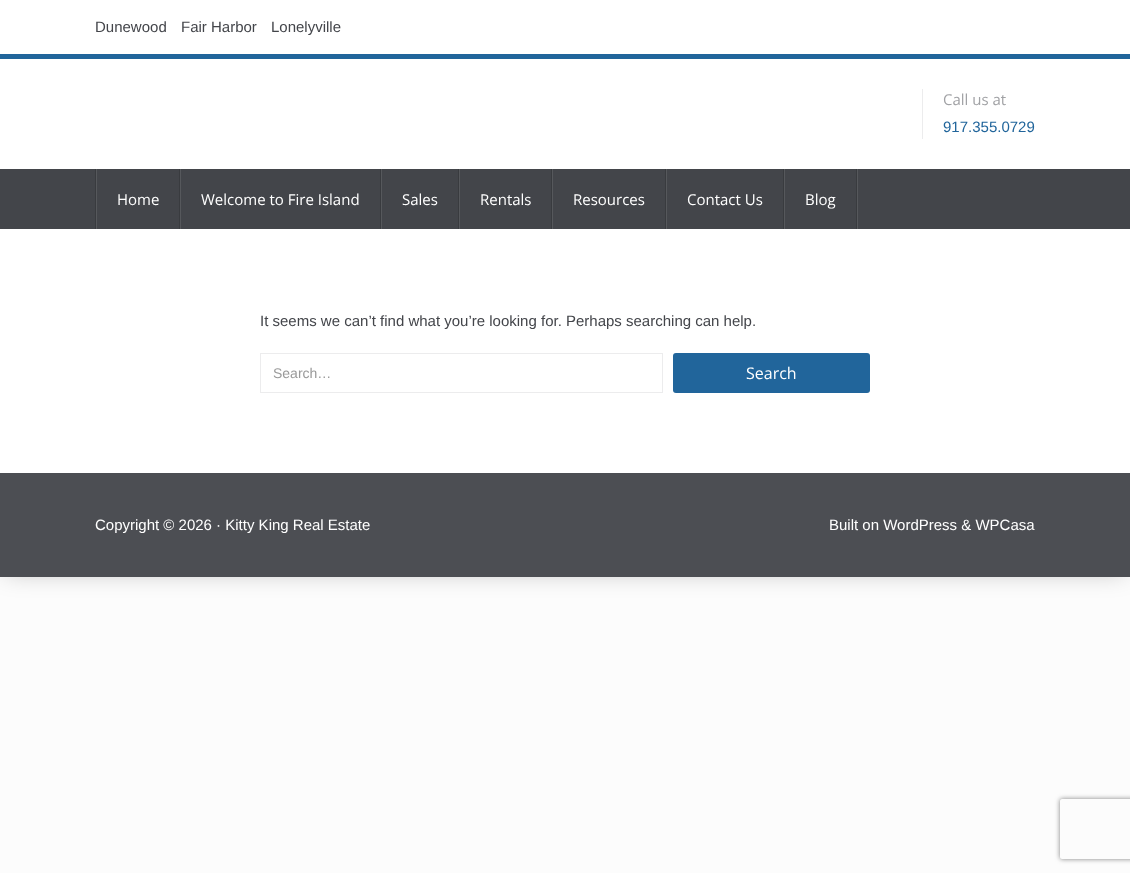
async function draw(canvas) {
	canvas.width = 1130;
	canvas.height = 873;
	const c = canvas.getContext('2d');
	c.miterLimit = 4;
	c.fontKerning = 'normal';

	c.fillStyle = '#fcfcfc';
	c.fillRect(0, 0, 1130, 873);
	c.fillStyle = '#00000040';
	c.filter = 'blur(12.5px)';
	c.beginPath();
	c.rect(5, 5, 1120, 567);
	c.fill();
	c.filter = 'none';
	c.fillStyle = '#fff';
	c.fillRect(0, 0, 1130, 473);
	c.fillStyle = '#21659b';
	c.fillRect(0, 54, 1130, 5);
	c.font = '15px Liberation Sans';
	c.fillStyle = '#43454a';
	for (const [text, x, y] of [
		['Dunewood', 95, 32],
		['Fair Harbor', 181, 32],
		['Lonelyville', 271, 32],
	]) {
		c.fillText(text, x, y);
	}
	c.fillStyle = '#ececed';
	c.fillRect(922, 89, 1, 50);
	c.font = '15px Open Sans';
	c.fillStyle = '#a1a2a5';
	c.fillText('Call us at', 943, 105);
	c.font = '15px Liberation Sans';
	c.fillStyle = '#21659b';
	c.fillText('917.355.0729', 943, 132);
	for (const [x, y, w, h, color] of [
		[0, 169, 1130, 60, '#43454a'],
		[857, 169, 1, 60, '#56585c'],
		[95, 169, 1, 60, '#393b3f'],
		[179, 169, 1, 60, '#393b3f'],
		[96, 169, 1, 60, '#56585c'],
	]) {
		c.fillStyle = color;
		c.fillRect(x, y, w, h);
	}
	c.font = '15px Open Sans';
	c.fillStyle = '#fff';
	c.fillText('Home', 117, 205);
	c.fillStyle = '#393b3f';
	c.fillRect(380, 169, 1, 60);
	c.fillStyle = '#56585c';
	c.fillRect(180, 169, 1, 60);
	c.fillStyle = '#fff';
	c.fillText('Welcome to Fire Island', 201, 205);
	c.fillStyle = '#393b3f';
	c.fillRect(458, 169, 1, 60);
	c.fillStyle = '#56585c';
	c.fillRect(381, 169, 1, 60);
	c.fillStyle = '#fff';
	c.fillText('Sales', 402, 205);
	c.fillStyle = '#393b3f';
	c.fillRect(551, 169, 1, 60);
	c.fillStyle = '#56585c';
	c.fillRect(459, 169, 1, 60);
	c.fillStyle = '#fff';
	c.fillText('Rentals', 480, 205);
	c.fillStyle = '#393b3f';
	c.fillRect(665, 169, 1, 60);
	c.fillStyle = '#56585c';
	c.fillRect(552, 169, 1, 60);
	c.fillStyle = '#fff';
	c.fillText('Resources', 573, 205);
	c.fillStyle = '#393b3f';
	c.fillRect(783, 169, 1, 60);
	c.fillStyle = '#56585c';
	c.fillRect(666, 169, 1, 60);
	c.fillStyle = '#fff';
	c.fillText('Contact Us', 687, 205);
	c.fillStyle = '#393b3f';
	c.fillRect(856, 169, 1, 60);
	c.fillStyle = '#56585c';
	c.fillRect(784, 169, 1, 60);
	c.fillStyle = '#fff';
	c.fillText('Blog', 805, 205);
	c.font = '15px Liberation Sans';
	c.fillStyle = '#43454a';
	c.fillText('It seems we can’t find what you’re looking for. Perhaps searching can help.', 260, 326);
	c.strokeStyle = '#ececed';
	c.strokeRect(260.5, 353.5, 402, 39);
	c.font = '14px Liberation Sans';
	c.fillStyle = '#999';
	c.fillText('Search…', 273, 378);
	c.fillStyle = '#21659b';
	c.beginPath();
	c.roundRect(673, 353, 197, 40, 3);
	c.fill();
	c.font = '16px Open Sans';
	c.fillStyle = '#fff';
	c.fillText('Search', 746, 379);
	c.fillStyle = '#4c4e53';
	c.fillRect(0, 473, 1130, 104);
	c.font = '15px Liberation Sans';
	c.fillStyle = '#fff';
	c.fillText('Copyright © 2026 · Kitty King Real Estate', 95, 530);
	c.fillText('Built on WordPress & WPCasa', 829, 530);
	c.save();
	c.beginPath();
	c.moveTo(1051, 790);
	c.lineTo(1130, 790);
	c.lineTo(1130, 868);
	c.lineTo(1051, 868);
	c.closePath();
	c.moveTo(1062, 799);
	c.lineTo(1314, 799);
	c.bezierCurveTo(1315, 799, 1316, 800, 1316, 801);
	c.lineTo(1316, 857);
	c.bezierCurveTo(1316, 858, 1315, 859, 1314, 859);
	c.lineTo(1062, 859);
	c.bezierCurveTo(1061, 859, 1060, 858, 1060, 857);
	c.lineTo(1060, 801);
	c.bezierCurveTo(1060, 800, 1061, 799, 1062, 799);
	c.closePath();
	c.clip('evenodd');
	c.fillStyle = '#808080';
	c.filter = 'blur(2.5px)';
	c.beginPath();
	c.roundRect(1060, 799, 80, 60, 2);
	c.fill();
	c.filter = 'none';
	c.restore();
}

draw(document.querySelector('canvas'));
